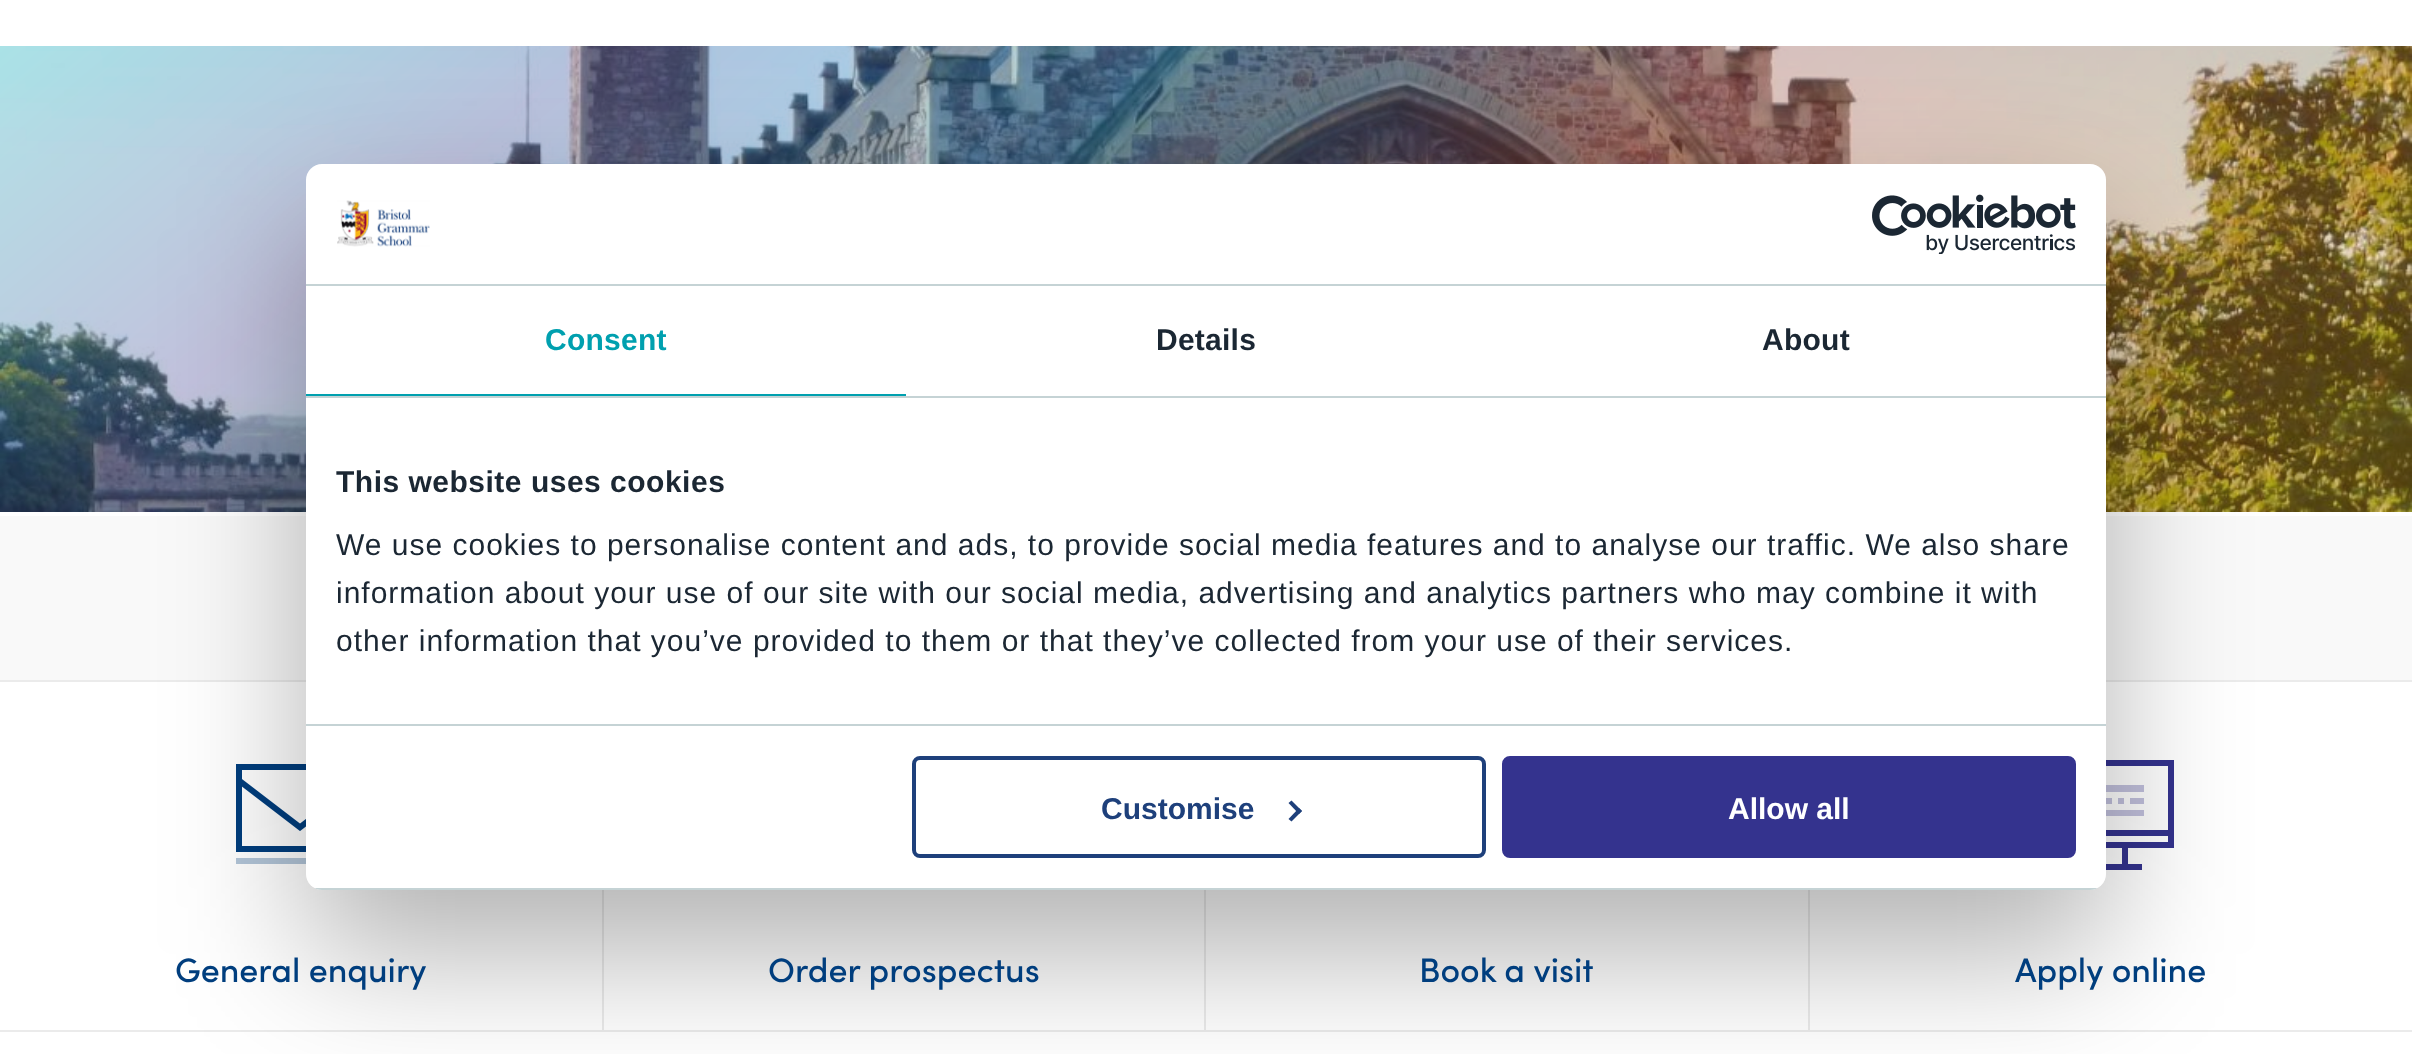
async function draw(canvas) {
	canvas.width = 2412;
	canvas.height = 1054;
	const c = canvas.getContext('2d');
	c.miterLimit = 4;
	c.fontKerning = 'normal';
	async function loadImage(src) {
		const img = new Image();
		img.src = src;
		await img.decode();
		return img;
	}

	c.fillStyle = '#fff';
	c.fillRect(0, 0, 2412, 1054);
	c.drawImage(await loadImage('img3.png'), 0, 46, 2412, 466);
	for (const [x, y, w, h, color] of [
		[0, 516, 2412, 164, '#f9f9f9'],
		[0, 680, 306, 2, '#ebebeb'],
		[602, 890, 2, 142, '#ebebeb'],
		[0, 1030, 604, 2, '#ebebeb'],
	]) {
		c.fillStyle = color;
		c.fillRect(x, y, w, h);
	}
	c.drawImage(await loadImage('img4.png'), 236, 764, 70, 100);
	for (const [x, y, w, h, color] of [
		[1204, 890, 2, 142, '#ebebeb'],
		[604, 1030, 602, 2, '#ebebeb'],
		[1808, 890, 2, 142, '#ebebeb'],
		[1206, 1030, 1206, 2, '#ebebeb'],
		[2106, 680, 306, 2, '#ebebeb'],
	]) {
		c.fillStyle = color;
		c.fillRect(x, y, w, h);
	}
	c.drawImage(await loadImage('img5.png'), 2106, 760, 68, 110);
	c.fillStyle = '#0000004d';
	c.filter = 'blur(68px)';
	c.beginPath();
	c.roundRect(306, 228, 1800, 726, 16);
	c.fill();
	c.filter = 'none';
	c.fillStyle = '#fff';
	c.beginPath();
	c.roundRect(306, 164, 1800, 726, 16);
	c.fill();
	c.fillStyle = '#c5d3d5';
	c.fillRect(306, 284, 1800, 2);
	c.drawImage(await loadImage('img1.png'), 337, 200, 93, 47);
	c.drawImage(await loadImage('img2.png'), 1872, 194, 204, 60);
	c.fillRect(306, 396, 1800, 2);
	c.fillStyle = '#00a0af';
	c.fillRect(306, 394, 600, 2);
	c.letterSpacing = '0.25px';
	c.font = 'bold 30px Liberation Sans';
	c.fillText('Consent', 545, 350);
	c.fillStyle = '#1b2733';
	c.fillText('Details', 1156, 350);
	c.fillText('About', 1762, 350);
	c.fillStyle = '#c5d3d5';
	c.fillRect(306, 724, 1800, 2);
	c.letterSpacing = '0.5px';
	c.fillStyle = '#1b2733';
	c.fillText('This website uses cookies', 336, 492);
	c.letterSpacing = '1px';
	c.font = '30px Liberation Sans';
	for (const [text, x, y] of [
		['We use cookies to personalise content and ads, to provide social media features and to analyse our traffic. We also share', 336, 555],
		['information about your use of our site with our social media, advertising and analytics partners who may combine it with', 336, 603],
		['other information that you’ve provided to them or that they’ve collected from your use of their services.', 336, 651],
	]) {
		c.fillText(text, x, y);
	}
	c.save();
	c.beginPath();
	c.roundRect(306, 164, 1800, 726, 16);
	c.clip();
	c.fillStyle = '#c5d3d5';
	c.fillRect(306, 888, 1800, 2);
	c.restore();
	c.beginPath();
	c.roundRect(914, 758, 570, 98, 6);
	c.strokeStyle = '#1e407b';
	c.lineWidth = 4;
	c.stroke();
	c.letterSpacing = '0px';
	c.font = 'bold 30px Liberation Sans';
	c.fillStyle = '#1e407b';
	c.fillText('Customise', 1101, 819);
	c.beginPath();
	c.moveTo(1291.5, 800.5);
	c.lineTo(1302, 811);
	c.lineTo(1299, 814);
	c.lineTo(1288.5, 803);
	c.closePath();
	c.fill();
	c.beginPath();
	c.moveTo(1299, 808);
	c.lineTo(1302, 811);
	c.lineTo(1291.5, 821.5);
	c.lineTo(1288.5, 819);
	c.closePath();
	c.fill();
	c.fillStyle = '#34338e';
	c.beginPath();
	c.roundRect(1504, 758, 570, 98, 6);
	c.fill();
	c.strokeStyle = '#34338e';
	c.stroke();
	c.fillStyle = '#fff';
	c.fillText('Allow all', 1728, 819);
	c.font = '500 34px Sofia';
	c.fillStyle = '#003e7e';
	for (const [text, x, y] of [
		['General enquiry', 175, 982],
		['Order prospectus', 768, 982],
		['Book a visit', 1419, 982],
		['Apply online', 2015, 982],
	]) {
		c.fillText(text, x, y);
	}
}

draw(document.querySelector('canvas'));
